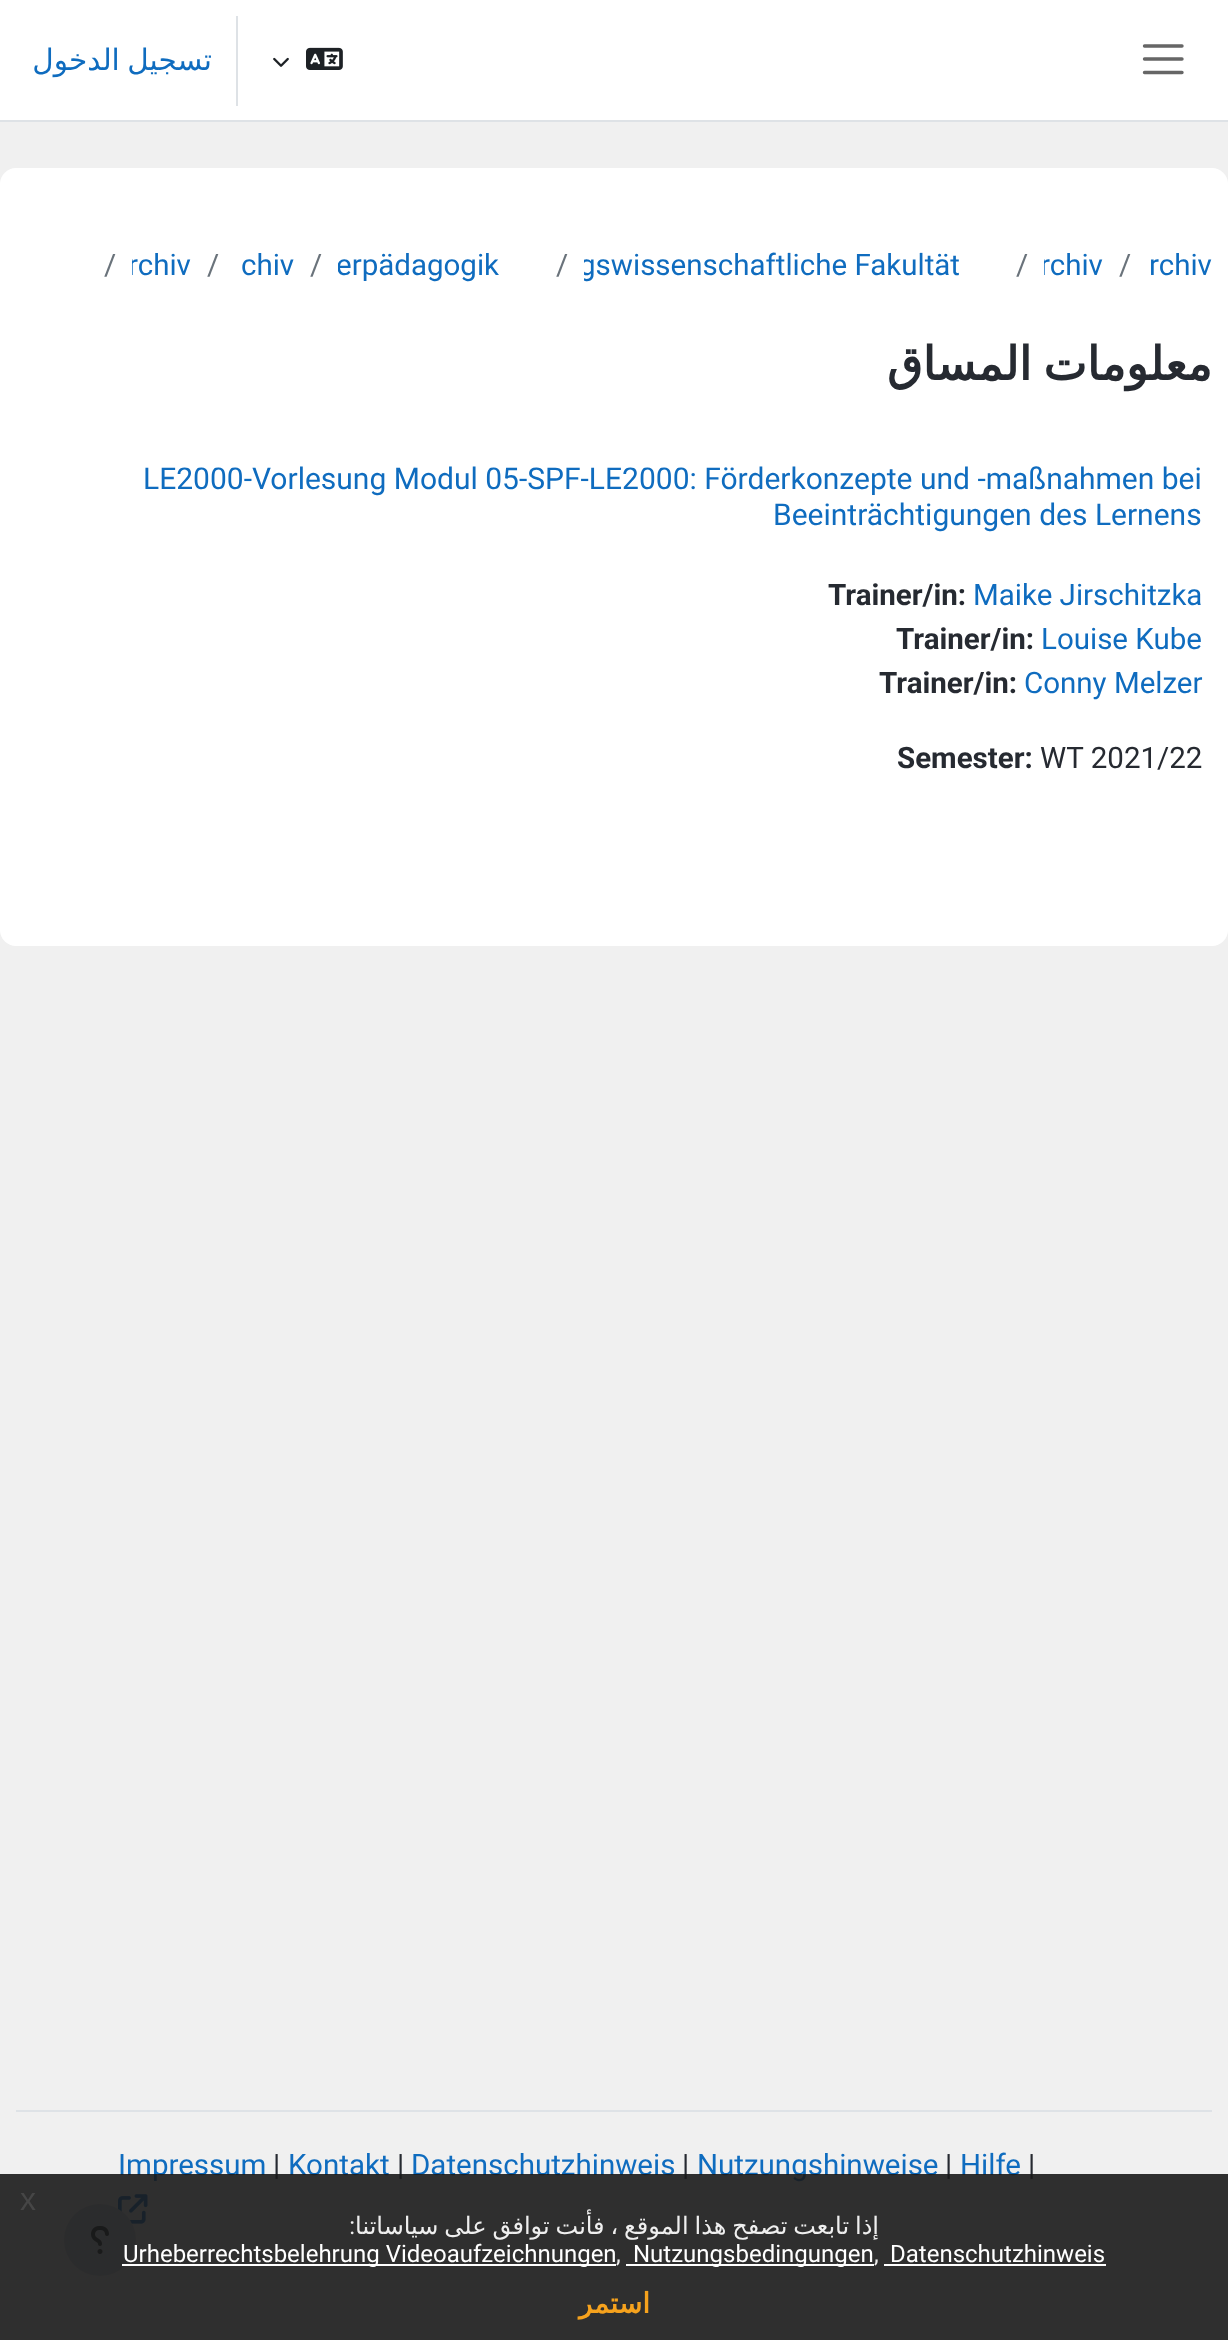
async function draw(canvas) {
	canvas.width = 1228;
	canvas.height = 2340;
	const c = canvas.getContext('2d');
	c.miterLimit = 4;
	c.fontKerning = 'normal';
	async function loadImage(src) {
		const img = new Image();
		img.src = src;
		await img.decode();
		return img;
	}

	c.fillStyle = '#f0f0f0';
	c.fillRect(0, 0, 1228, 2340);
	c.fillStyle = '#fff';
	c.fillRect(0, 0, 1228, 120);
	c.fillStyle = '#dee2e6';
	c.fillRect(0, 120, 1228, 2);
	c.wordSpacing = '-2px';
	c.direction = 'rtl';
	c.font = '29.5px DejaVu Sans';
	c.fillStyle = '#0f6cbf';
	c.fillText('تسجيل الدخول', 212, 70);
	c.fillStyle = '#dee2e6';
	c.fillRect(236, 16, 2, 90);
	c.drawImage(await loadImage('img1.png'), 273, 57, 16, 10);
	c.drawImage(await loadImage('img2.png'), 306, 47, 37, 23);
	c.beginPath();
	c.moveTo(1144.5, 46);
	c.lineTo(1182, 46);
	c.moveTo(1144.5, 59);
	c.lineTo(1182, 59);
	c.moveTo(1144.5, 72.5);
	c.lineTo(1182, 72.5);
	c.strokeStyle = '#666';
	c.lineWidth = 3.4;
	c.lineCap = 'round';
	c.stroke();
	c.fillStyle = '#fff';
	c.beginPath();
	c.roundRect(0, 168, 1228, 778, 16);
	c.fill();
	c.wordSpacing = '0px';
	c.direction = 'ltr';
	c.font = '29.5px Roboto';
	c.fillStyle = '#6a737b';
	c.fillText('/', 104, 275);
	c.save();
	c.beginPath();
	c.rect(132, 242, 60, 44);
	c.clip();
	c.fillStyle = '#0f6cbf';
	c.fillText('rchiv', 128, 275);
	c.restore();
	c.fillText('/', 207, 275);
	c.fillStyle = '#0f6cbf';
	c.fillText('chiv', 241, 275);
	c.fillStyle = '#6a737b';
	c.fillText('/', 310, 275);
	c.save();
	c.beginPath();
	c.rect(338, 242, 202, 44);
	c.clip();
	c.fillStyle = '#0f6cbf';
	c.fillText('erpädagogik', 336, 275);
	c.restore();
	c.fillText('/', 556, 275);
	c.save();
	c.beginPath();
	c.rect(584, 242, 416, 44);
	c.clip();
	c.fillStyle = '#0f6cbf';
	c.fillText('gswissenschaftliche Fakultät', 579, 275);
	c.restore();
	c.fillText('/', 1016, 275);
	c.save();
	c.beginPath();
	c.rect(1044, 242, 60, 44);
	c.clip();
	c.fillStyle = '#0f6cbf';
	c.fillText('rchiv', 1040, 275);
	c.restore();
	c.fillText('/', 1119, 275);
	c.fillStyle = '#0f6cbf';
	c.fillText('rchiv', 1149, 275);
	c.wordSpacing = '-3px';
	c.direction = 'rtl';
	c.font = 'bold 46.25px DejaVu Sans';
	c.fillStyle = '#262a31';
	c.fillText('معلومات المساق', 1212, 380);
	c.wordSpacing = '0px';
	c.direction = 'ltr';
	c.font = '30px Roboto';
	c.fillStyle = '#0f6cbf';
	c.fillText('LE2000-Vorlesung Modul 05-SPF-LE2000: Förderkonzepte und -maßnahmen bei', 143, 489);
	c.fillText('Beeinträchtigungen des Lernens', 773, 525);
	c.font = 'bold 29.5px Roboto';
	c.fillStyle = '#262a31';
	c.fillText('Trainer/in:', 828, 605);
	c.font = '29.5px Roboto';
	c.fillStyle = '#0f6cbf';
	c.fillText('Maike Jirschitzka', 973, 605);
	c.font = 'bold 29.5px Roboto';
	c.fillStyle = '#262a31';
	c.fillText('Trainer/in:', 896, 649);
	c.font = '29.5px Roboto';
	c.fillStyle = '#0f6cbf';
	c.fillText('Louise Kube', 1041, 649);
	c.font = 'bold 29.5px Roboto';
	c.fillStyle = '#262a31';
	c.fillText('Trainer/in:', 879, 693);
	c.font = '29.5px Roboto';
	c.fillStyle = '#0f6cbf';
	c.fillText('Conny Melzer', 1024, 693);
	c.font = 'bold 29.5px Roboto';
	c.fillStyle = '#262a31';
	c.fillText('Semester:', 897, 768);
	c.font = '29.5px Roboto';
	c.fillText('WT 2021/22', 1040, 768);
	c.fillStyle = '#dee2e6';
	c.fillRect(16, 2110, 1196, 2);
	c.fillStyle = '#0f6cbf';
	c.fillText('Impressum', 118, 2175);
	c.fillStyle = '#262a31';
	c.fillText('|', 273, 2175);
	c.fillStyle = '#0f6cbf';
	c.fillText('Kontakt', 288, 2175);
	c.fillStyle = '#262a31';
	c.fillText('|', 397, 2175);
	c.fillStyle = '#0f6cbf';
	c.fillText('Datenschutzhinweis', 411, 2175);
	c.fillStyle = '#262a31';
	c.fillText('|', 682, 2175);
	c.fillStyle = '#0f6cbf';
	c.fillText('Nutzungshinweise', 697, 2175);
	c.fillStyle = '#262a31';
	c.fillText('|', 945, 2175);
	c.fillStyle = '#0f6cbf';
	c.fillText('Hilfe', 960, 2175);
	c.fillStyle = '#262a31';
	c.fillText('|', 1028, 2175);
	c.drawImage(await loadImage('img3.png'), 118, 2194, 30, 30);
	c.fillStyle = '#ced4da';
	c.beginPath();
	c.arc(100, 2240, 36, 0, 2 * Math.PI);
	c.fill();
	c.drawImage(await loadImage('img4.png'), 91, 2226, 18, 28);
	c.fillStyle = '#191919e6';
	c.fillRect(0, 2174, 1228, 166);
	c.font = '32px Liberation Sans';
	c.fillStyle = '#464646';
	c.fillText('x', 20, 2210);
	c.direction = 'rtl';
	c.font = '24px Roboto';
	c.fillStyle = '#efefef';
	c.fillText(':', 355, 2234);
	c.wordSpacing = '-1.75px';
	c.font = '24px DejaVu Sans';
	c.fillText('إذا تابعت تصفح هذا الموقع ، فأنت توافق على سياساتنا', 879, 2234);
	c.fillStyle = '#fff';
	c.fillRect(122, 2264, 494, 2);
	c.wordSpacing = '0px';
	c.direction = 'ltr';
	c.font = '24px Roboto';
	c.fillText('Urheberrechtsbelehrung Videoaufzeichnungen', 123, 2262);
	c.fillStyle = '#efefef';
	c.fillText(',', 616, 2262);
	c.fillStyle = '#fff';
	c.fillRect(626, 2264, 248, 2);
	c.fillText('Nutzungsbedingungen', 633, 2262);
	c.fillStyle = '#efefef';
	c.fillText(',', 874, 2262);
	c.fillStyle = '#fff';
	c.fillText('Datenschutzhinweis', 890, 2262);
	c.fillRect(884, 2264, 222, 2);
	c.direction = 'rtl';
	c.font = 'bold 28px DejaVu Sans';
	c.fillStyle = '#f6a21d';
	c.fillText('استمر', 650, 2313);
}

draw(document.querySelector('canvas'));
